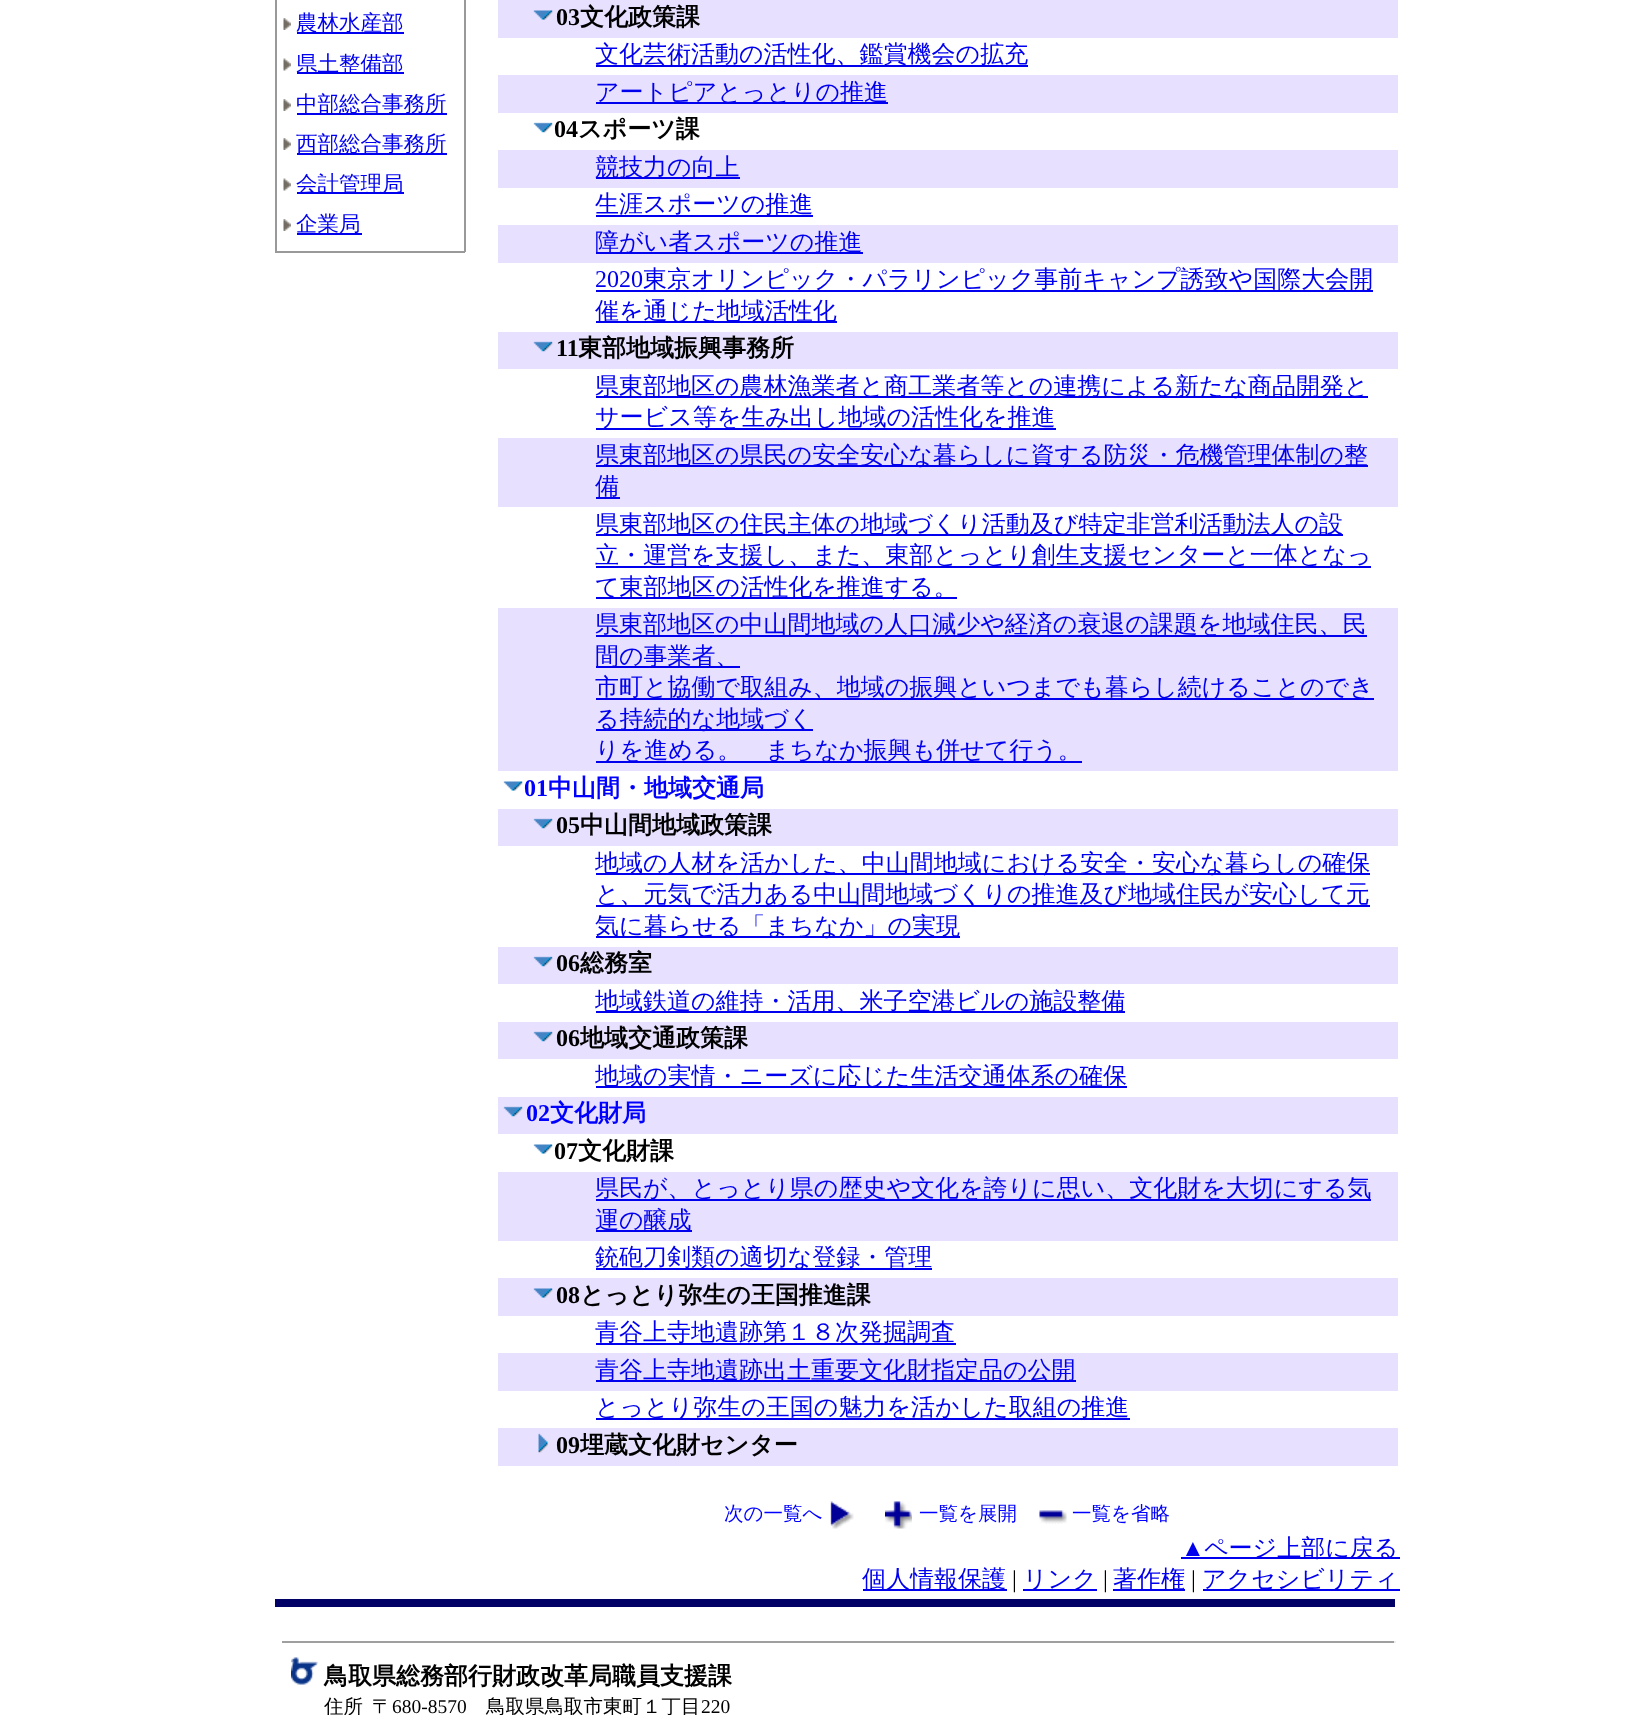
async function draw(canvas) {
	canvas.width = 1648;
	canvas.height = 1715;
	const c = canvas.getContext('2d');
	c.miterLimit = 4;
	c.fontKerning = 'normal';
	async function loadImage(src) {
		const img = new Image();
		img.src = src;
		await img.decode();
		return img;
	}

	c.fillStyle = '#fff';
	c.fillRect(0, 0, 1648, 1715);
	for (const [x, y, w, h, color] of [
		[464, 0, 2, 252, '#999'],
		[275, 251, 190, 2, '#999'],
		[275, 0, 2, 252, '#999'],
	]) {
		c.fillStyle = color;
		c.fillRect(x, y, w, h);
	}
	c.drawImage(await loadImage('img1.png'), 283, 18, 8, 12);
	c.fillStyle = '#00e';
	c.fillRect(297, 32, 107, 2);
	c.font = '500 21.5px WenQuanYi Zen Hei';
	c.fillText('農林水産部', 296, 30);
	c.drawImage(await loadImage('img2.png'), 283, 58, 8, 13);
	c.fillRect(297, 72, 107, 2);
	c.fillText('県土整備部', 296, 71);
	c.drawImage(await loadImage('img1.png'), 283, 99, 8, 12);
	c.fillRect(297, 113, 150, 2);
	c.fillText('中部総合事務所', 296, 111);
	c.drawImage(await loadImage('img1.png'), 283, 138, 8, 12);
	c.fillRect(297, 153, 150, 2);
	c.fillText('西部総合事務所', 296, 151);
	c.drawImage(await loadImage('img2.png'), 283, 178, 8, 13);
	c.fillRect(297, 192, 107, 2);
	c.fillText('会計管理局', 296, 191);
	c.drawImage(await loadImage('img1.png'), 283, 219, 8, 12);
	c.fillRect(297, 233, 65, 2);
	c.fillText('企業局', 296, 231);
	c.fillStyle = '#e8e0ff';
	c.fillRect(498, 0, 900, 38);
	c.drawImage(await loadImage('img3.png'), 533, 10, 20, 10);
	c.font = 'bold 24px Liberation Serif';
	c.fillStyle = '#000';
	c.fillText('03', 556, 25);
	c.font = 'bold 24px WenQuanYi Zen Hei';
	c.fillText('文化政策課', 580, 25);
	c.fillStyle = '#00e';
	c.fillRect(596, 65, 432, 2);
	c.font = '500 24px WenQuanYi Zen Hei';
	c.fillText('文化芸術活動の活性化、鑑賞機会の拡充', 595, 62);
	c.fillStyle = '#e8e0ff';
	c.fillRect(498, 75, 900, 38);
	c.fillStyle = '#00e';
	c.fillRect(596, 102, 292, 2);
	c.fillText('アートピアとっとりの推進', 595, 100);
	c.drawImage(await loadImage('img4.png'), 533, 122, 20, 11);
	c.font = 'bold 24px Liberation Serif';
	c.fillStyle = '#000';
	c.fillText('04', 554, 137);
	c.font = 'bold 24px WenQuanYi Zen Hei';
	c.fillText('スポーツ課', 578, 137);
	c.fillStyle = '#e8e0ff';
	c.fillRect(498, 150, 900, 38);
	c.fillStyle = '#00e';
	c.fillRect(596, 177, 144, 2);
	c.font = '500 24px WenQuanYi Zen Hei';
	c.fillText('競技力の向上', 595, 175);
	c.fillRect(596, 215, 217, 2);
	c.fillText('生涯スポーツの推進', 595, 212);
	c.fillStyle = '#e8e0ff';
	c.fillRect(498, 225, 900, 38);
	c.fillStyle = '#00e';
	c.fillRect(596, 252, 267, 2);
	c.fillText('障がい者スポーツの推進', 595, 250);
	c.font = '24px Liberation Serif';
	c.fillText('2020', 595, 287);
	c.fillRect(596, 290, 777, 2);
	c.font = '500 24px WenQuanYi Zen Hei';
	c.fillText('東京オリンピック・パラリンピック事前キャンプ誘致や国際大会開', 643, 287);
	c.fillRect(596, 321, 241, 2);
	c.fillText('催を通じた地域活性化', 595, 319);
	c.fillStyle = '#e8e0ff';
	c.fillRect(498, 332, 900, 37);
	c.drawImage(await loadImage('img5.png'), 533, 341, 20, 11);
	c.font = 'bold 24px Liberation Serif';
	c.fillStyle = '#000';
	c.fillText('11', 556, 356);
	c.font = 'bold 24px WenQuanYi Zen Hei';
	c.fillText('東部地域振興事務所', 578, 356);
	c.fillStyle = '#00e';
	c.fillRect(596, 396, 772, 2);
	c.font = '500 24px WenQuanYi Zen Hei';
	c.fillText('県東部地区の農林漁業者と商工業者等との連携による新たな商品開発と', 595, 394);
	c.fillRect(596, 428, 460, 2);
	c.fillText('サービス等を生み出し地域の活性化を推進', 595, 425);
	c.fillStyle = '#e8e0ff';
	c.fillRect(498, 438, 900, 69);
	c.fillStyle = '#00e';
	c.fillRect(596, 465, 772, 2);
	c.fillText('県東部地区の県民の安全安心な暮らしに資する防災・危機管理体制の整', 595, 463);
	c.fillRect(596, 497, 24, 2);
	c.fillText('備', 595, 494);
	c.fillRect(596, 534, 747, 2);
	c.fillText('県東部地区の住民主体の地域づくり活動及び特定非営利活動法人の設', 595, 532);
	c.fillRect(596, 566, 775, 2);
	c.fillText('立・運営を支援し、また、東部とっとり創生支援センターと一体となっ', 595, 563);
	c.fillRect(596, 597, 361, 2);
	c.fillText('て東部地区の活性化を推進する。', 595, 595);
	c.fillStyle = '#e8e0ff';
	c.fillRect(498, 608, 900, 163);
	c.fillStyle = '#00e';
	c.fillRect(596, 635, 771, 2);
	c.fillText('県東部地区の中山間地域の人口減少や経済の衰退の課題を地域住民、民', 595, 632);
	c.fillRect(596, 666, 144, 2);
	c.fillText('間の事業者、', 595, 664);
	c.fillRect(596, 698, 778, 2);
	c.fillText('市町と協働で取組み、地域の振興といつまでも暮らし続けることのでき', 595, 695);
	c.fillRect(596, 729, 217, 2);
	c.fillText('る持続的な地域づく', 595, 727);
	c.fillRect(596, 761, 486, 2);
	c.fillText('りを進める。　まちなか振興も併せて行う。', 595, 758);
	c.drawImage(await loadImage('img6.png'), 503, 781, 20, 10);
	c.font = 'bold 24px Liberation Serif';
	c.fillStyle = '#00f';
	c.fillText('01', 524, 796);
	c.font = 'bold 24px WenQuanYi Zen Hei';
	c.fillText('中山間・地域交通局', 548, 796);
	c.fillStyle = '#e8e0ff';
	c.fillRect(498, 809, 900, 37);
	c.drawImage(await loadImage('img5.png'), 533, 818, 20, 11);
	c.font = 'bold 24px Liberation Serif';
	c.fillStyle = '#000';
	c.fillText('05', 556, 833);
	c.font = 'bold 24px WenQuanYi Zen Hei';
	c.fillText('中山間地域政策課', 580, 833);
	c.fillStyle = '#00e';
	c.fillRect(596, 873, 774, 2);
	c.font = '500 24px WenQuanYi Zen Hei';
	c.fillText('地域の人材を活かした、中山間地域における安全・安心な暮らしの確保', 595, 871);
	c.fillRect(596, 905, 774, 2);
	c.fillText('と、元気で活力ある中山間地域づくりの推進及び地域住民が安心して元', 595, 902);
	c.fillRect(596, 936, 364, 2);
	c.fillText('気に暮らせる「まちなか」の実現', 595, 934);
	c.fillStyle = '#e8e0ff';
	c.fillRect(498, 947, 900, 37);
	c.drawImage(await loadImage('img5.png'), 533, 956, 20, 11);
	c.font = 'bold 24px Liberation Serif';
	c.fillStyle = '#000';
	c.fillText('06', 556, 971);
	c.font = 'bold 24px WenQuanYi Zen Hei';
	c.fillText('総務室', 580, 971);
	c.fillStyle = '#00e';
	c.fillRect(596, 1011, 529, 2);
	c.font = '500 24px WenQuanYi Zen Hei';
	c.fillText('地域鉄道の維持・活用、米子空港ビルの施設整備', 595, 1009);
	c.fillStyle = '#e8e0ff';
	c.fillRect(498, 1022, 900, 37);
	c.drawImage(await loadImage('img5.png'), 533, 1031, 20, 11);
	c.font = 'bold 24px Liberation Serif';
	c.fillStyle = '#000';
	c.fillText('06', 556, 1046);
	c.font = 'bold 24px WenQuanYi Zen Hei';
	c.fillText('地域交通政策課', 580, 1046);
	c.fillStyle = '#00e';
	c.fillRect(596, 1086, 531, 2);
	c.font = '500 24px WenQuanYi Zen Hei';
	c.fillText('地域の実情・ニーズに応じた生活交通体系の確保', 595, 1084);
	c.fillStyle = '#e8e0ff';
	c.fillRect(498, 1097, 900, 37);
	c.drawImage(await loadImage('img7.png'), 503, 1106, 20, 11);
	c.font = 'bold 24px Liberation Serif';
	c.fillStyle = '#00f';
	c.fillText('02', 526, 1121);
	c.font = 'bold 24px WenQuanYi Zen Hei';
	c.fillText('文化財局', 550, 1121);
	c.drawImage(await loadImage('img8.png'), 533, 1144, 20, 10);
	c.font = 'bold 24px Liberation Serif';
	c.fillStyle = '#000';
	c.fillText('07', 554, 1159);
	c.font = 'bold 24px WenQuanYi Zen Hei';
	c.fillText('文化財課', 578, 1159);
	c.fillStyle = '#e8e0ff';
	c.fillRect(498, 1172, 900, 69);
	c.fillStyle = '#00e';
	c.fillRect(596, 1199, 775, 2);
	c.font = '500 24px WenQuanYi Zen Hei';
	c.fillText('県民が、とっとり県の歴史や文化を誇りに思い、文化財を大切にする気', 595, 1196);
	c.fillRect(596, 1230, 96, 2);
	c.fillText('運の醸成', 595, 1228);
	c.fillRect(596, 1268, 336, 2);
	c.fillText('銃砲刀剣類の適切な登録・管理', 595, 1265);
	c.fillStyle = '#e8e0ff';
	c.fillRect(498, 1278, 900, 38);
	c.drawImage(await loadImage('img3.png'), 533, 1288, 20, 10);
	c.font = 'bold 24px Liberation Serif';
	c.fillStyle = '#000';
	c.fillText('08', 556, 1303);
	c.font = 'bold 24px WenQuanYi Zen Hei';
	c.fillText('とっとり弥生の王国推進課', 580, 1303);
	c.fillStyle = '#00e';
	c.fillRect(596, 1343, 360, 2);
	c.font = '500 24px WenQuanYi Zen Hei';
	c.fillText('青谷上寺地遺跡第１８次発掘調査', 595, 1340);
	c.fillStyle = '#e8e0ff';
	c.fillRect(498, 1353, 900, 38);
	c.fillStyle = '#00e';
	c.fillRect(596, 1380, 480, 2);
	c.fillText('青谷上寺地遺跡出土重要文化財指定品の公開', 595, 1378);
	c.fillRect(596, 1418, 534, 2);
	c.fillText('とっとり弥生の王国の魅力を活かした取組の推進', 595, 1415);
	c.fillStyle = '#e8e0ff';
	c.fillRect(498, 1428, 900, 38);
	c.drawImage(await loadImage('img9.png'), 538, 1433, 10, 20);
	c.font = 'bold 24px Liberation Serif';
	c.fillStyle = '#000';
	c.fillText('09', 556, 1453);
	c.font = 'bold 24px WenQuanYi Zen Hei';
	c.fillText('埋蔵文化財センター', 580, 1453);
	c.font = '500 19.5px WenQuanYi Zen Hei';
	c.fillStyle = '#00f';
	c.fillText('次の一覧へ', 724, 1520);
	c.drawImage(await loadImage('img10.png'), 830, 1501, 24, 28);
	c.drawImage(await loadImage('img11.png'), 885, 1501, 27, 28);
	c.fillText('一覧を展開', 919, 1520);
	c.drawImage(await loadImage('img12.png'), 1039, 1510, 28, 14);
	c.fillText('一覧を省略', 1072, 1520);
	c.font = '24px Liberation Serif';
	c.fillStyle = '#00e';
	c.fillText('▲', 1181, 1556);
	c.fillRect(1181, 1557, 219, 2);
	c.font = '500 24px WenQuanYi Zen Hei';
	c.fillText('ページ上部に戻る', 1204, 1556);
	c.fillRect(863, 1589, 144, 2);
	c.fillText('個人情報保護', 862, 1587);
	c.font = '24px Liberation Serif';
	c.fillStyle = '#000';
	c.fillText('|', 1012, 1587);
	c.fillStyle = '#00e';
	c.fillRect(1023, 1589, 74, 2);
	c.font = '500 24px WenQuanYi Zen Hei';
	c.fillText('リンク', 1023, 1587);
	c.font = '24px Liberation Serif';
	c.fillStyle = '#000';
	c.fillText('|', 1103, 1587);
	c.fillStyle = '#00e';
	c.fillRect(1113, 1589, 72, 2);
	c.font = '500 24px WenQuanYi Zen Hei';
	c.fillText('著作権', 1113, 1587);
	c.font = '24px Liberation Serif';
	c.fillStyle = '#000';
	c.fillText('|', 1191, 1587);
	c.fillStyle = '#00e';
	c.fillRect(1203, 1589, 197, 2);
	c.font = '500 24px WenQuanYi Zen Hei';
	c.fillText('アクセシビリティ', 1202, 1587);
	for (const [x, y, w, h, color] of [
		[275, 1599, 1120, 8, '#006'],
		[282, 1641, 1113, 2, '#9f9f9f'],
		[1394, 1641, 2, 2, '#eee'],
	]) {
		c.fillStyle = color;
		c.fillRect(x, y, w, h);
	}
	c.drawImage(await loadImage('img13.png'), 291, 1657, 27, 28);
	c.font = 'bold 24px WenQuanYi Zen Hei';
	c.fillStyle = '#000';
	c.fillText('鳥取県総務部行財政改革局職員支援課', 324, 1684);
	c.font = '500 19.5px WenQuanYi Zen Hei';
	c.fillText('住所', 324, 1713);
	c.fillText('〒', 372, 1713);
	c.font = '19.5px Liberation Serif';
	c.fillText('680-8570', 392, 1713);
	c.font = '500 19.5px WenQuanYi Zen Hei';
	c.fillText('鳥取県鳥取市東町１丁目', 486, 1713);
	c.font = '19.5px Liberation Serif';
	c.fillText('220', 701, 1713);
}

draw(document.querySelector('canvas'));
